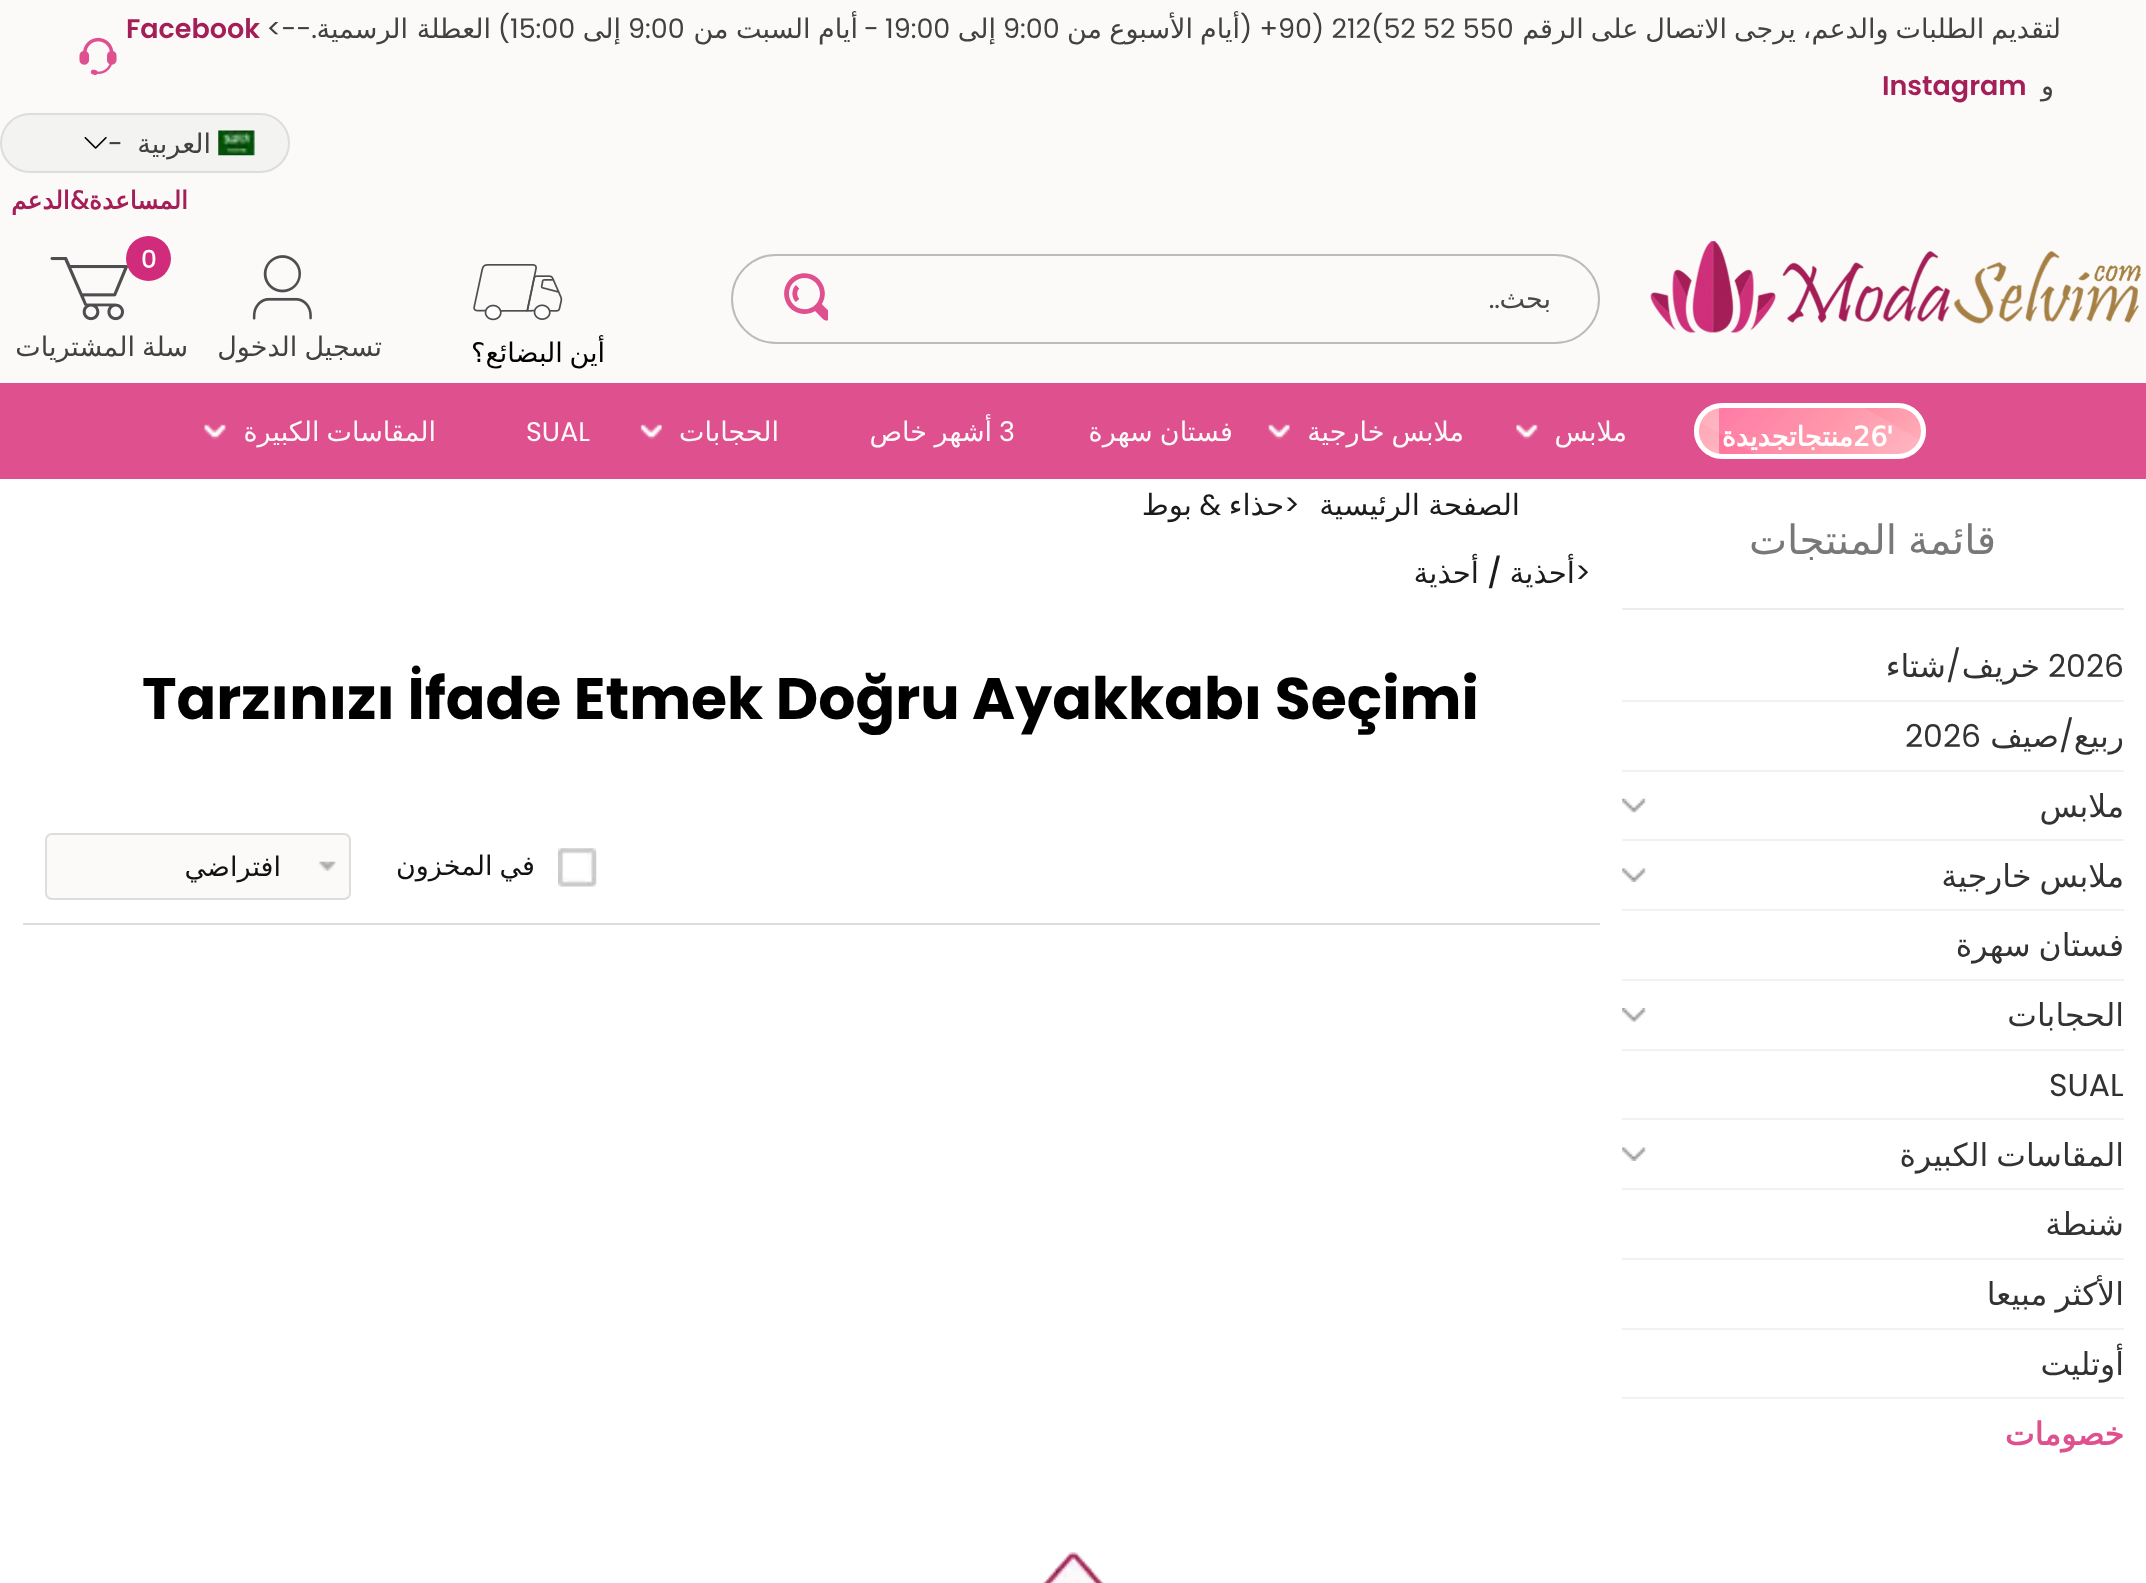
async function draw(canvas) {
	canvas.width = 2146;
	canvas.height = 1583;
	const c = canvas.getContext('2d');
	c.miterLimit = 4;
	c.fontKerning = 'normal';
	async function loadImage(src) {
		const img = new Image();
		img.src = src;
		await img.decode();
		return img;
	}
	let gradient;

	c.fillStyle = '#fff';
	c.fillRect(0, 0, 2146, 1583);
	c.fillStyle = '#fbfaf8';
	c.fillRect(0, 0, 2146, 383);
	c.drawImage(await loadImage('img1.png'), 79, 37, 38, 39);
	c.wordSpacing = '-1.5px';
	c.direction = 'rtl';
	c.font = '27px DejaVu Sans';
	c.fillStyle = '#414141';
	c.fillText('لتقديم الطلبات والدعم، يرجى الاتصال على الرقم', 2061, 38);
	c.wordSpacing = '0px';
	c.direction = 'ltr';
	c.font = '27px Poppins';
	c.fillText('90) 212(52 52 550', 1278, 38);
	c.direction = 'rtl';
	c.fillText('+ (', 1278, 38);
	c.font = '27px DejaVu Sans';
	for (const [text, x, y] of [
		['أيام', 1240, 38],
		['الأسبوع', 1193, 38],
		['من', 1102, 38],
	]) {
		c.fillText(text, x, y);
	}
	c.direction = 'ltr';
	c.font = '27px Poppins';
	c.fillText('9:00', 1003, 38);
	c.direction = 'rtl';
	c.font = '27px DejaVu Sans';
	c.fillText('إلى', 996, 38);
	c.direction = 'ltr';
	c.font = '27px Poppins';
	c.fillText('19:00', 885, 38);
	c.direction = 'rtl';
	c.fillText('-', 879, 38);
	c.wordSpacing = '-1px';
	c.font = '27px DejaVu Sans';
	c.fillText('أيام السبت من', 858, 38);
	c.wordSpacing = '0px';
	c.direction = 'ltr';
	c.font = '27px Poppins';
	c.fillText('9:00', 628, 38);
	c.direction = 'rtl';
	c.font = '27px DejaVu Sans';
	c.fillText('إلى', 621, 38);
	c.direction = 'ltr';
	c.font = '27px Poppins';
	c.fillText('15:00', 510, 38);
	c.direction = 'rtl';
	c.fillText(')', 510, 38);
	c.font = '27px DejaVu Sans';
	c.fillText('العطلة الرسمية', 491, 38);
	c.font = '27px Poppins';
	c.fillText('.-->', 317, 38);
	c.direction = 'ltr';
	c.font = '600 27px Poppins';
	c.fillStyle = '#a41f57';
	c.fillText('Facebook', 126, 38);
	c.direction = 'rtl';
	c.font = '27px DejaVu Sans';
	c.fillStyle = '#414141';
	c.fillText('و', 2054, 95);
	c.direction = 'ltr';
	c.font = '600 27px Poppins';
	c.fillStyle = '#a41f57';
	c.fillText('Instagram', 1882, 95);
	c.fillStyle = '#f3f3f2';
	c.beginPath();
	c.roundRect(1, 114, 288, 58, 29);
	c.fill();
	c.strokeStyle = '#ddd';
	c.lineWidth = 2;
	c.stroke();
	c.drawImage(await loadImage('img2.png'), 218, 130, 37, 26);
	c.direction = 'rtl';
	c.font = '27px DejaVu Sans';
	c.fillStyle = '#414141';
	c.fillText('العربية', 211, 153);
	c.direction = 'ltr';
	c.font = '27px Poppins';
	c.fillText('-', 108, 153);
	c.drawImage(await loadImage('img3.png'), 84, 137, 23, 12);
	c.direction = 'rtl';
	c.font = 'bold 24.75px DejaVu Sans';
	c.fillStyle = '#a41f57';
	c.fillText('المساعدة&الدعم', 188, 209);
	c.drawImage(await loadImage('img4.png'), 1650, 241, 491, 92);
	c.beginPath();
	c.roundRect(732, 255, 867, 88, 44);
	c.strokeStyle = '#bbb';
	c.stroke();
	c.font = '27px DejaVu Sans';
	c.fillStyle = '#474747';
	c.fillText('بحث', 1551, 308);
	c.font = '27px Poppins';
	c.fillText('..', 1500, 308);
	c.drawImage(await loadImage('img5.png'), 784, 273, 44, 48);
	c.drawImage(await loadImage('img6.png'), 473, 264, 90, 57);
	c.wordSpacing = '-2px';
	c.font = '27px DejaVu Sans';
	c.fillStyle = '#000';
	c.fillText('أين البضائع؟', 605, 362);
	c.drawImage(await loadImage('img7.png'), 252, 255, 60, 65);
	c.wordSpacing = '-1.5px';
	c.fillStyle = '#414141';
	c.fillText('تسجيل الدخول', 382, 356);
	c.drawImage(await loadImage('img8.png'), 50, 257, 78, 64);
	c.fillStyle = '#d02c7b';
	c.beginPath();
	c.arc(148.5, 258.5, 22.5, 0, 2 * Math.PI);
	c.fill();
	c.wordSpacing = '0px';
	c.direction = 'ltr';
	c.font = '500 24.75px Poppins';
	c.fillStyle = '#fff';
	c.fillText('0', 141, 268);
	c.wordSpacing = '-1.5px';
	c.direction = 'rtl';
	c.font = '27px DejaVu Sans';
	c.fillStyle = '#414141';
	c.fillText('سلة المشتريات', 188, 356);
	c.fillStyle = '#df508e';
	c.fillRect(0, 383, 2146, 96);
	c.save();
	c.beginPath();
	c.roundRect(1694, 403, 232, 56, 28);
	c.clip();
	gradient = c.createLinearGradient(1540, 363, 1675, 498);
	gradient.addColorStop(0, '#ff6b9c');
	gradient.addColorStop(0.5, '#ff8da1');
	gradient.addColorStop(1, '#ffb6c1');
	c.fillStyle = gradient;
	c.fillRect(1694, 407, 25, 48);
	gradient = c.createLinearGradient(1763, 363, 1898, 498);
	gradient.addColorStop(0, '#ff6b9c');
	gradient.addColorStop(0.5, '#ff8da1');
	gradient.addColorStop(1, '#ffb6c1');
	c.fillStyle = gradient;
	c.fillRect(1719, 407, 207, 48);
	c.restore();
	c.beginPath();
	c.roundRect(1696.5, 405.5, 227, 51, 25.5);
	c.strokeStyle = '#fff';
	c.lineWidth = 5;
	c.stroke();
	c.fillStyle = '#ffffff1a';
	c.beginPath();
	c.moveTo(1723, 407);
	c.lineTo(1863, 407);
	c.lineTo(1920, 440);
	c.bezierCurveTo(1917, 449, 1908, 455, 1898, 455);
	c.lineTo(1757, 455);
	c.lineTo(1701, 423);
	c.bezierCurveTo(1704, 413, 1713, 407, 1723, 407);
	c.closePath();
	c.fill();
	c.wordSpacing = '0px';
	c.direction = 'ltr';
	c.font = 'bold 27px DejaVu Sans';
	c.fillStyle = '#fff';
	c.fillText('\'', 1886, 446);
	c.fillText('26', 1853, 446);
	c.direction = 'rtl';
	c.fillText('منتجاتجديدة', 1853, 446);
	c.drawImage(await loadImage('img9.png'), 1516, 424, 22, 16);
	c.font = '27px DejaVu Sans';
	c.fillStyle = '#fbfaf8';
	c.fillText('ملابس', 1627, 441);
	c.drawImage(await loadImage('img10.png'), 1268, 424, 22, 16);
	c.wordSpacing = '-1.5px';
	c.fillText('ملابس خارجية', 1464, 441);
	c.fillText('فستان سهرة', 1233, 441);
	c.wordSpacing = '0px';
	c.direction = 'ltr';
	c.font = '27px Poppins';
	c.fillText('3', 999, 441);
	c.wordSpacing = '-1px';
	c.direction = 'rtl';
	c.font = '27px DejaVu Sans';
	c.fillText('أشهر خاص', 992, 441);
	c.drawImage(await loadImage('img11.png'), 640, 424, 23, 15);
	c.wordSpacing = '0px';
	c.fillText('الحجابات', 779, 441);
	c.direction = 'ltr';
	c.font = '27px Poppins';
	c.fillText('SUAL', 526, 441);
	c.drawImage(await loadImage('img12.png'), 204, 424, 22, 16);
	c.wordSpacing = '-1.5px';
	c.direction = 'rtl';
	c.font = '27px DejaVu Sans';
	c.fillText('المقاسات الكبيرة', 436, 441);
	c.fillStyle = '#ececec';
	c.fillRect(1622, 608, 502, 2);
	c.wordSpacing = '-2px';
	c.font = '40.5px DejaVu Sans';
	c.fillStyle = '#787878';
	c.fillText('قائمة المنتجات', 1996, 554);
	c.fillStyle = '#f2f2f2';
	c.fillRect(1622, 700, 502, 2);
	c.wordSpacing = '0px';
	c.direction = 'ltr';
	c.font = '31.5px Poppins';
	c.fillStyle = '#323232';
	c.fillText('2026', 2048, 677);
	c.direction = 'rtl';
	c.font = '31.5px DejaVu Sans';
	c.fillText('خريف', 2040, 677);
	c.font = '31.5px Poppins';
	c.fillText('/', 1961, 677);
	c.font = '31.5px DejaVu Sans';
	c.fillText('شتاء', 1946, 677);
	c.fillStyle = '#f2f2f2';
	c.fillRect(1622, 770, 502, 2);
	c.fillStyle = '#323232';
	c.fillText('ربيع', 2124, 747);
	c.font = '31.5px Poppins';
	c.fillText('/', 2074, 747);
	c.font = '31.5px DejaVu Sans';
	c.fillText('صيف', 2059, 747);
	c.direction = 'ltr';
	c.font = '31.5px Poppins';
	c.fillText('2026', 1905, 747);
	c.fillStyle = '#f2f2f2';
	c.fillRect(1622, 839, 502, 2);
	c.direction = 'rtl';
	c.font = '31.5px DejaVu Sans';
	c.fillStyle = '#323232';
	c.fillText('ملابس', 2124, 817);
	c.drawImage(await loadImage('img13.png'), 1622, 798, 24, 15);
	c.fillStyle = '#f2f2f2';
	c.fillRect(1622, 909, 502, 2);
	c.wordSpacing = '-2px';
	c.fillStyle = '#323232';
	c.fillText('ملابس خارجية', 2124, 887);
	c.drawImage(await loadImage('img14.png'), 1622, 868, 24, 14);
	c.fillStyle = '#f2f2f2';
	c.fillRect(1622, 979, 502, 2);
	c.fillStyle = '#323232';
	c.fillText('فستان سهرة', 2124, 956);
	c.fillStyle = '#f2f2f2';
	c.fillRect(1622, 1049, 502, 2);
	c.wordSpacing = '0px';
	c.fillStyle = '#323232';
	c.fillText('الحجابات', 2124, 1026);
	c.drawImage(await loadImage('img15.png'), 1622, 1008, 24, 14);
	c.fillStyle = '#f2f2f2';
	c.fillRect(1622, 1118, 502, 2);
	c.direction = 'ltr';
	c.font = '31.5px Poppins';
	c.fillStyle = '#323232';
	c.fillText('SUAL', 2049, 1096);
	c.fillStyle = '#f2f2f2';
	c.fillRect(1622, 1188, 502, 2);
	c.wordSpacing = '-2px';
	c.direction = 'rtl';
	c.font = '31.5px DejaVu Sans';
	c.fillStyle = '#323232';
	c.fillText('المقاسات الكبيرة', 2124, 1166);
	c.drawImage(await loadImage('img14.png'), 1622, 1147, 24, 14);
	c.fillStyle = '#f2f2f2';
	c.fillRect(1622, 1258, 502, 2);
	c.wordSpacing = '0px';
	c.fillStyle = '#323232';
	c.fillText('شنطة', 2124, 1235);
	c.fillStyle = '#f2f2f2';
	c.fillRect(1622, 1328, 502, 2);
	c.wordSpacing = '-2px';
	c.fillStyle = '#323232';
	c.fillText('الأكثر مبيعا', 2124, 1305);
	c.fillStyle = '#f2f2f2';
	c.fillRect(1622, 1397, 502, 2);
	c.wordSpacing = '0px';
	c.fillStyle = '#323232';
	c.fillText('أوتليت', 2124, 1375);
	c.font = 'bold 31.5px DejaVu Sans';
	c.fillStyle = '#df508e';
	c.fillText('خصومات', 2124, 1445);
	c.wordSpacing = '-1px';
	c.font = '29.25px DejaVu Sans';
	c.fillStyle = '#1b1b1b';
	c.fillText('الصفحة الرئيسية', 1520, 515);
	c.wordSpacing = '0px';
	c.direction = 'ltr';
	c.font = '29.25px Poppins';
	c.fillText('>', 1284, 515);
	c.direction = 'rtl';
	c.font = '29.25px DejaVu Sans';
	c.fillText('حذاء', 1284, 515);
	c.font = '29.25px Poppins';
	c.fillText('&', 1221, 515);
	c.font = '29.25px DejaVu Sans';
	c.fillText('بوط', 1192, 515);
	c.direction = 'ltr';
	c.font = '29.25px Poppins';
	c.fillText('>', 1575, 583);
	c.direction = 'rtl';
	c.font = '29.25px DejaVu Sans';
	c.fillText('أحذية', 1575, 583);
	c.font = '500 29.25px Poppins';
	c.fillText('/', 1502, 583);
	c.font = '29.25px DejaVu Sans';
	c.fillText('أحذية', 1479, 583);
	c.direction = 'ltr';
	c.font = 'bold 58.5px Poppins';
	c.fillStyle = '#000';
	c.fillText('Tarzınızı İfade Etmek Doğru Ayakkabı Seçimi', 142, 719);
	c.fillStyle = '#dcdcdc';
	c.fillRect(23, 923, 1577, 2);
	c.drawImage(await loadImage('img16.png'), 558, 848, 39, 39);
	c.wordSpacing = '-1.5px';
	c.direction = 'rtl';
	c.font = '27px DejaVu Sans';
	c.fillStyle = '#111';
	c.fillText('في المخزون', 535, 875);
	c.fillStyle = '#fbfaf8';
	c.beginPath();
	c.roundRect(45, 833, 306, 67, 7);
	c.fill();
	c.drawImage(await loadImage('img17.png'), 319, 861, 17, 10);
	c.beginPath();
	c.roundRect(46, 834, 304, 65, 6);
	c.strokeStyle = '#ddd';
	c.lineWidth = 2;
	c.stroke();
	c.wordSpacing = '0px';
	c.fillStyle = '#111';
	c.fillText('افتراضي', 281, 876);
	c.drawImage(await loadImage('img18.png'), 1043, 1552, 61, 31);
}

draw(document.querySelector('canvas'));
